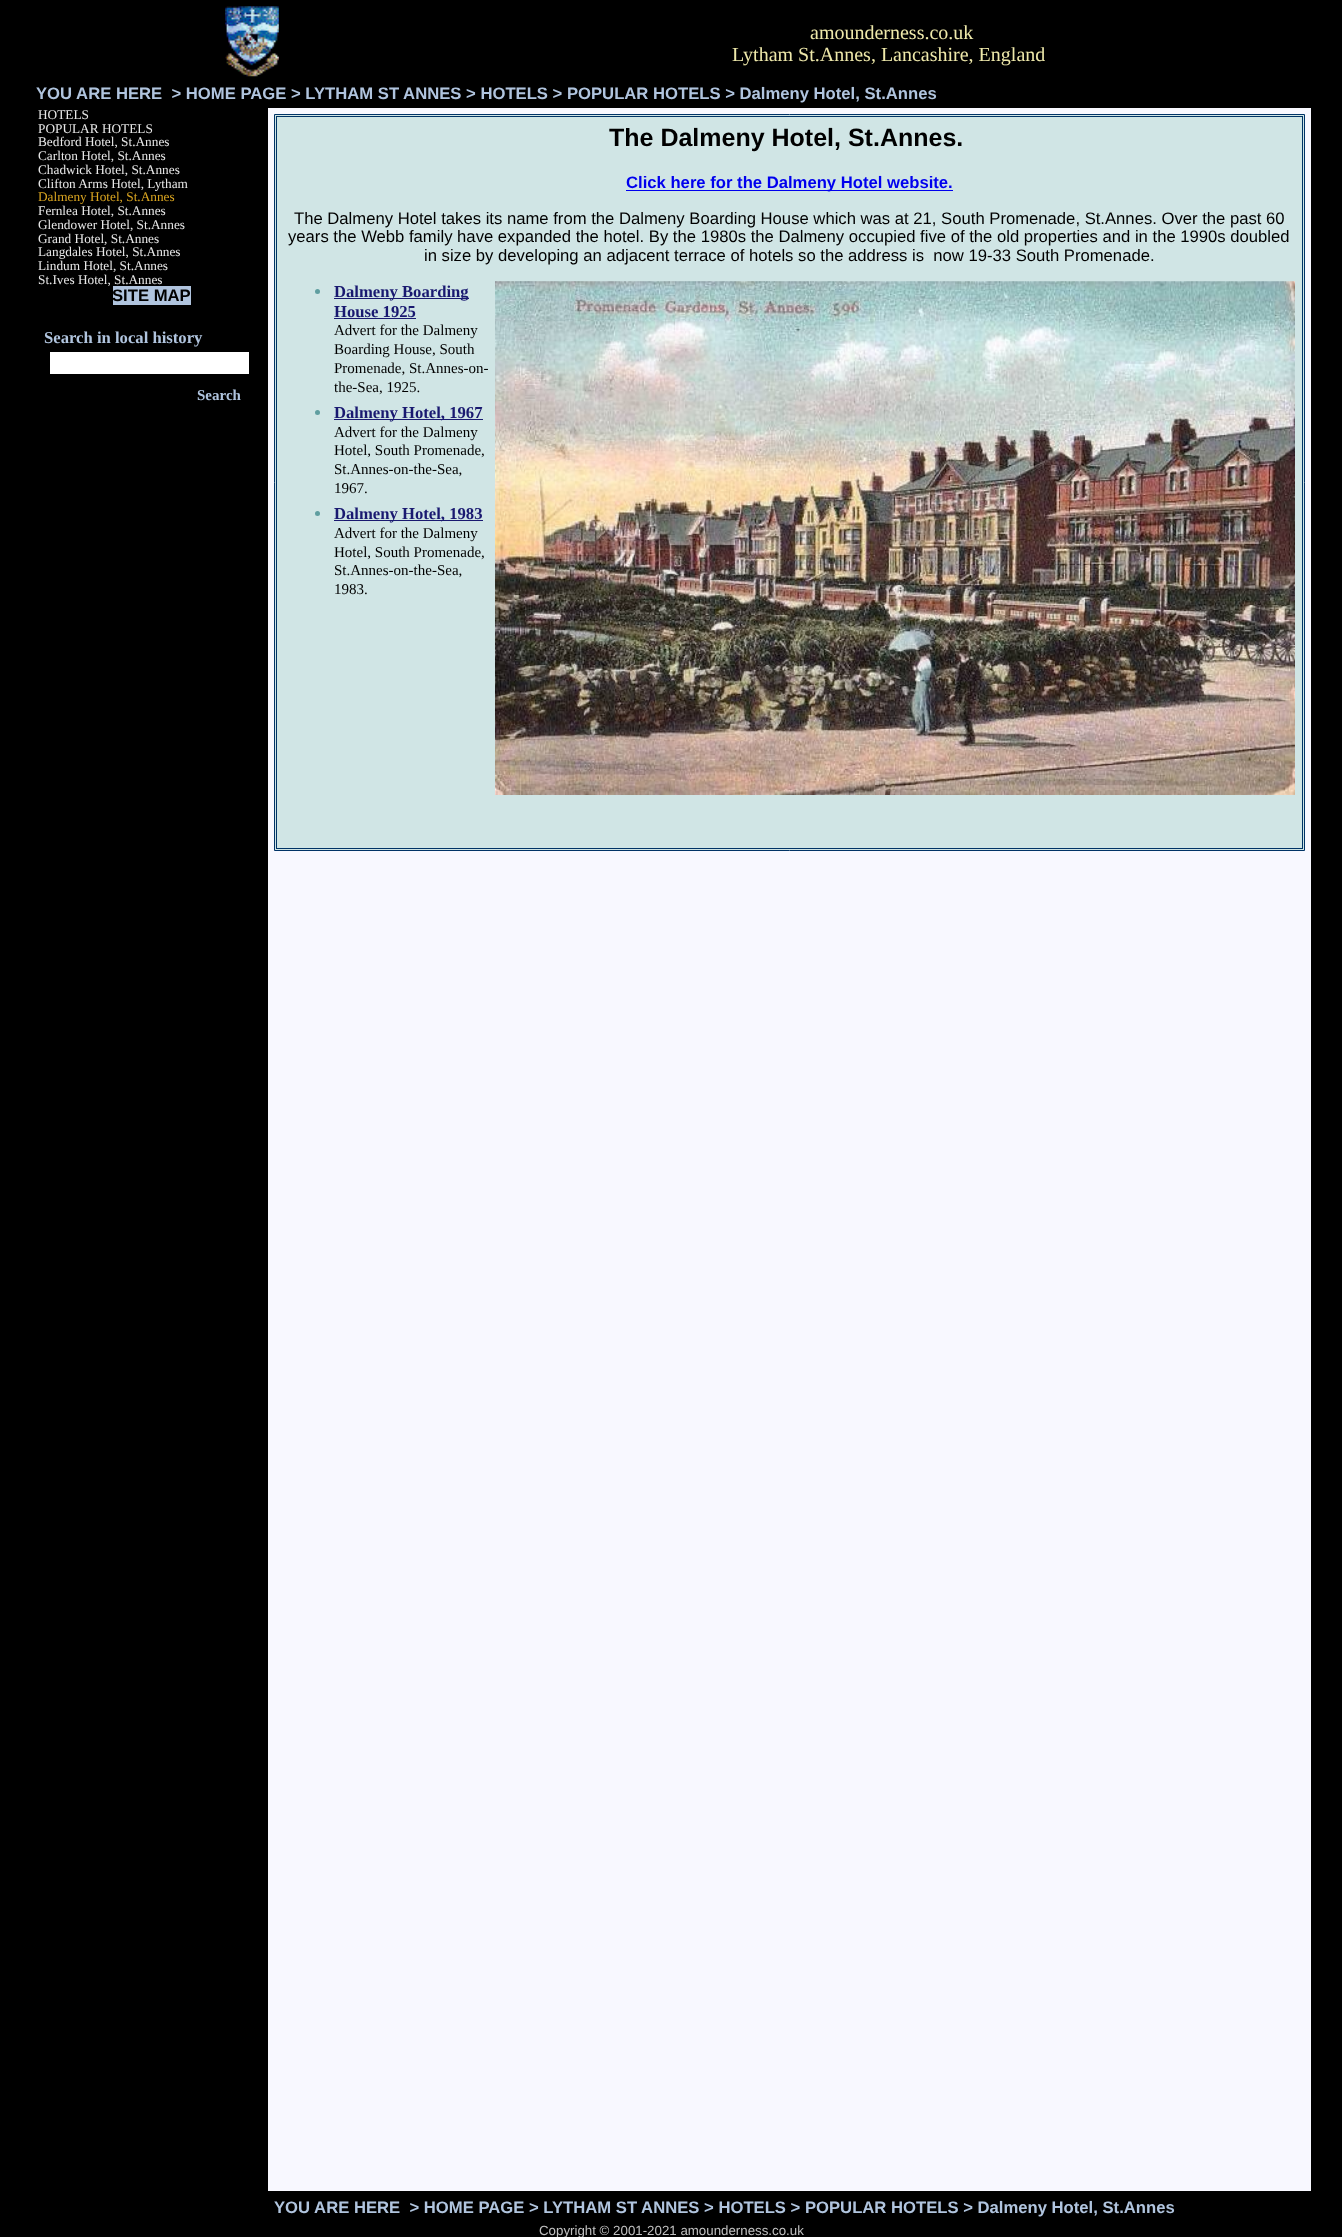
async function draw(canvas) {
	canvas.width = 1342;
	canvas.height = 2237;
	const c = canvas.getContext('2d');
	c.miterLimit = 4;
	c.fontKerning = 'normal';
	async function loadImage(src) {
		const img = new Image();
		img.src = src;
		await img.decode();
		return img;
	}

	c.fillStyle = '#000';
	c.fillRect(0, 0, 1342, 2237);
	c.drawImage(await loadImage('img1.png'), 225, 6, 54, 71);
	c.font = '20px Liberation Serif';
	c.fillStyle = '#eee8aa';
	c.fillText('amounderness.co.uk', 810, 39);
	c.fillText('Lytham St.Annes, Lancashire, England', 732, 61);
	c.font = 'bold 16.67px Liberation Sans';
	c.fillStyle = '#b0c4de';
	c.fillText('YOU ARE HERE  > HOME PAGE > LYTHAM ST ANNES > HOTELS > POPULAR HOTELS > Dalmeny Hotel, St.Annes', 36, 99);
	c.font = '13.3px Liberation Serif';
	c.fillStyle = '#e8e8e8';
	for (const [text, x, y] of [
		['HOTELS', 38, 119],
		['POPULAR HOTELS', 38, 133],
		['Bedford Hotel, St.Annes', 38, 146],
		['Carlton Hotel, St.Annes', 38, 160],
		['Chadwick Hotel, St.Annes', 38, 174],
		['Clifton Arms Hotel, Lytham', 38, 188],
	]) {
		c.fillText(text, x, y);
	}
	c.fillStyle = '#daa520';
	c.fillText('Dalmeny Hotel, St.Annes', 38, 201);
	c.fillStyle = '#e8e8e8';
	for (const [text, x, y] of [
		['Fernlea Hotel, St.Annes', 38, 215],
		['Glendower Hotel, St.Annes', 38, 229],
		['Grand Hotel, St.Annes', 38, 243],
		['Langdales Hotel, St.Annes', 38, 256],
		['Lindum Hotel, St.Annes', 38, 270],
	]) {
		c.fillText(text, x, y);
	}
	c.fillStyle = '#b0c4de';
	c.fillRect(113, 286, 78, 19);
	c.fillStyle = '#e8e8e8';
	c.fillText('St.Ives Hotel, St.Annes', 38, 284);
	c.font = 'bold 16.67px Liberation Sans';
	c.fillStyle = '#000';
	c.fillText('SITE MAP', 112, 301);
	c.font = 'bold 16.67px Liberation Serif';
	c.fillStyle = '#b0c4de';
	c.fillText('Search in local history', 44, 343);
	c.fillStyle = '#fff';
	c.fillRect(50, 352, 199, 22);
	c.font = 'bold 15px Liberation Serif';
	c.fillStyle = '#b0c4de';
	c.fillText('Search', 197, 400);
	c.fillStyle = '#f8f8ff';
	c.fillRect(268, 108, 1043, 2083);
	c.fillStyle = '#d0e5e5';
	c.beginPath();
	c.rect(274.5, 114.5, 1030, 736);
	c.fill();
	c.strokeStyle = '#036';
	c.stroke();
	c.strokeRect(276.5, 116.5, 1026, 732);
	c.font = 'bold 25px Liberation Sans';
	c.fillStyle = '#000';
	c.fillText('The Dalmeny Hotel, St.Annes.', 609, 146);
	c.fillStyle = '#00e';
	c.fillRect(626, 190, 327, 1);
	c.font = 'bold 16.67px Liberation Sans';
	c.fillText('Click here for the Dalmeny Hotel website.', 626, 188);
	c.font = '16.67px Liberation Sans';
	c.fillStyle = '#000';
	for (const [text, x, y] of [
		['The Dalmeny Hotel takes its name from the Dalmeny Boarding House which was at 21, South Promenade, St.Annes. Over the past 60', 294, 224],
		['years the Webb family have expanded the hotel. By the 1980s the Dalmeny occupied five of the old properties and in the 1990s doubled', 288, 242],
		['in size by developing an adjacent terrace of hotels so the address is  now 19-33 South Promenade.', 424, 261],
	]) {
		c.fillText(text, x, y);
	}
	c.fillStyle = '#5f9ea0';
	c.beginPath();
	c.arc(317.5, 291.5, 2.5, 0, 2 * Math.PI);
	c.fill();
	c.fillStyle = '#191970';
	c.fillRect(334, 298, 135, 1);
	c.font = 'bold 16.67px Liberation Serif';
	c.fillText('Dalmeny Boarding', 334, 297);
	c.fillText('House 1925', 334, 317);
	c.fillRect(334, 318, 82, 1);
	c.font = '15px Liberation Serif';
	c.fillStyle = '#000';
	for (const [text, x, y] of [
		['Advert for the Dalmeny', 334, 335],
		['Boarding House, South', 334, 354],
		['Promenade, St.Annes-on-', 334, 373],
		['the-Sea, 1925.', 334, 392],
	]) {
		c.fillText(text, x, y);
	}
	c.fillStyle = '#5f9ea0';
	c.beginPath();
	c.arc(317.5, 412.5, 2.5, 0, 2 * Math.PI);
	c.fill();
	c.fillStyle = '#191970';
	c.fillRect(334, 419, 149, 1);
	c.font = 'bold 16.67px Liberation Serif';
	c.fillText('Dalmeny Hotel, 1967', 334, 418);
	c.font = '15px Liberation Serif';
	c.fillStyle = '#000';
	for (const [text, x, y] of [
		['Advert for the Dalmeny', 334, 437],
		['Hotel, South Promenade,', 334, 455],
		['St.Annes-on-the-Sea,', 334, 474],
		['1967.', 334, 493],
	]) {
		c.fillText(text, x, y);
	}
	c.fillStyle = '#5f9ea0';
	c.beginPath();
	c.arc(317.5, 513.5, 2.5, 0, 2 * Math.PI);
	c.fill();
	c.fillStyle = '#191970';
	c.fillRect(334, 520, 149, 1);
	c.font = 'bold 16.67px Liberation Serif';
	c.fillText('Dalmeny Hotel, 1983', 334, 519);
	c.font = '15px Liberation Serif';
	c.fillStyle = '#000';
	for (const [text, x, y] of [
		['Advert for the Dalmeny', 334, 538],
		['Hotel, South Promenade,', 334, 557],
		['St.Annes-on-the-Sea,', 334, 575],
		['1983.', 334, 594],
	]) {
		c.fillText(text, x, y);
	}
	c.drawImage(await loadImage('img2.png'), 495, 281, 800, 514);
	c.font = 'bold 16.67px Liberation Sans';
	c.fillStyle = '#b0c4de';
	c.fillText('YOU ARE HERE  > HOME PAGE > LYTHAM ST ANNES > HOTELS > POPULAR HOTELS > Dalmeny Hotel, St.Annes', 274, 2213);
	c.font = '13.3px Liberation Sans';
	c.fillStyle = '#c0c0c0';
	c.fillText('Copyright © 2001-2021 amounderness.co.uk', 539, 2235);
}

draw(document.querySelector('canvas'));
